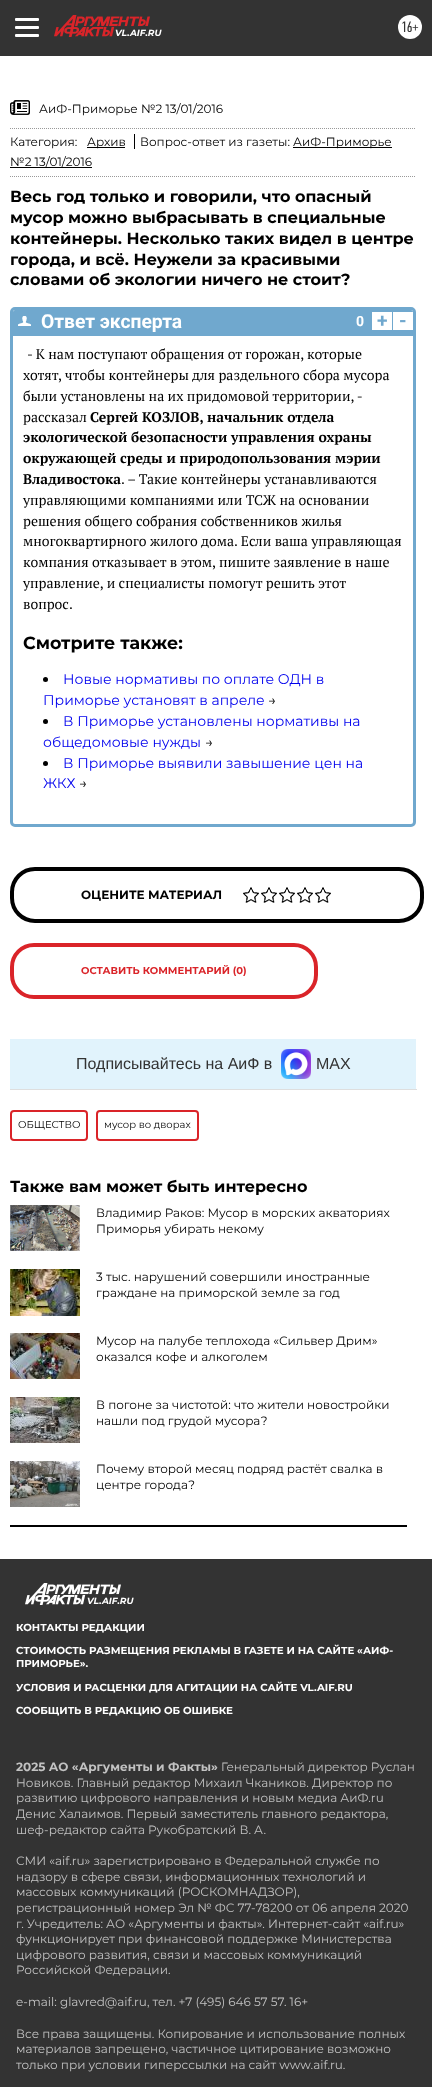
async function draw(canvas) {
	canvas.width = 432;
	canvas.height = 2087;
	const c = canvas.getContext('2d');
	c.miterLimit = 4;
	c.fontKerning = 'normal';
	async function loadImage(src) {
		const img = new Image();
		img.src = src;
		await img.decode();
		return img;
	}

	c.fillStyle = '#fff';
	c.fillRect(0, 0, 432, 2087);
	c.fillStyle = '#333';
	c.fillRect(0, 0, 432, 56);
	c.fillStyle = '#fff';
	c.beginPath();
	c.roundRect(15, 18, 24, 3, 1);
	c.fill();
	c.beginPath();
	c.roundRect(15, 26, 24, 3, 1);
	c.fill();
	c.beginPath();
	c.roundRect(15, 34, 24, 3, 1);
	c.fill();
	c.drawImage(await loadImage('img1.png'), 54, 15, 96, 22);
	c.font = 'italic bold 9px Montserrat';
	c.fillText('VL.AIF.RU', 115, 36);
	c.beginPath();
	c.arc(410, 27, 12, 0, 2 * Math.PI);
	c.fill();
	c.font = '15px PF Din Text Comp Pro';
	c.fillStyle = '#333';
	c.fillText('16+', 401, 32);
	c.drawImage(await loadImage('img2.png'), 10, 100, 20, 15);
	c.font = '12px Montserrat';
	c.fillStyle = '#000';
	c.fillText('АиФ-Приморье №2 13/01/2016', 39, 113);
	c.beginPath();
	c.moveTo(10, 128.5);
	c.lineTo(416, 128.5);
	c.strokeStyle = '#999';
	c.setLineDash([1, 1]);
	c.stroke();
	c.beginPath();
	c.moveTo(10, 176.5);
	c.lineTo(416, 176.5);
	c.stroke();
	c.fillText('Категория:', 10, 146);
	c.fillRect(87, 147, 38, 1);
	c.fillText('Архив', 87, 146);
	c.fillText('Вопрос-ответ из газеты:', 140, 146);
	c.fillRect(134, 134, 1, 15);
	c.fillRect(293, 147, 99, 1);
	c.fillText('АиФ-Приморье', 293, 146);
	c.fillRect(10, 167, 82, 1);
	c.fillText('№2 13/01/2016', 10, 166);
	c.font = 'bold 16px Montserrat';
	for (const [text, x, y] of [
		['Весь год только и говорили, что опасный', 10, 202],
		['мусор можно выбрасывать в специальные', 10, 223],
		['контейнеры. Несколько таких видел в центре', 10, 244],
		['города, и всё. Неужели за красивыми', 10, 265],
		['словами об экологии ничего не стоит?', 10, 285],
	]) {
		c.fillText(text, x, y);
	}
	c.beginPath();
	c.roundRect(11.5, 308.5, 403, 517, 3.5);
	c.strokeStyle = '#70a8ce';
	c.lineWidth = 3;
	c.setLineDash([]);
	c.stroke();
	c.fillStyle = '#70a8ce';
	c.beginPath();
	c.roundRect(13, 310, 400, 26, [2, 2, 0, 0]);
	c.fill();
	c.drawImage(await loadImage('img3.png'), 18, 316, 13, 10);
	c.font = 'bold 19.25px Roboto';
	c.fillStyle = '#fff';
	c.fillText('Ответ эксперта', 41, 328);
	c.font = 'bold 14px Roboto';
	c.fillText('0', 356, 326);
	c.fillRect(372, 312, 20, 18);
	c.font = 'bold 19.25px Roboto';
	c.fillStyle = '#70a8ce';
	c.fillText('+', 377, 327);
	c.fillStyle = '#fff';
	c.fillRect(393, 312, 20, 18);
	c.fillStyle = '#70a8ce';
	c.fillText('-', 399, 327);
	c.font = '14px PT Serif';
	c.fillStyle = '#000';
	for (const [text, x, y] of [
		['- К нам поступают обращения от горожан, которые', 27, 359],
		['хотят, чтобы контейнеры для раздельного сбора мусора', 23, 380],
		['были установлены на их придомовой территории, -', 23, 401],
		['рассказал', 23, 422],
	]) {
		c.fillText(text, x, y);
	}
	c.font = 'bold 14px PT Serif';
	for (const [text, x, y] of [
		['Сергей КОЗЛОВ, начальник отдела', 90, 422],
		['экологической безопасности управления охраны', 23, 442],
		['окружающей среды и природопользования мэрии', 23, 463],
		['Владивостока', 23, 484],
	]) {
		c.fillText(text, x, y);
	}
	c.font = '14px PT Serif';
	for (const [text, x, y] of [
		['. – Такие контейнеры устанавливаются', 121, 484],
		['управляющими компаниями или ТСЖ на основании', 23, 505],
		['решения общего собрания собственников жилья', 23, 526],
		['многоквартирного жилого дома. Если ваша управляющая', 23, 546],
		['компания отказывает в этом, пишите заявление в наше', 23, 567],
		['управление, и специалисты помогут решить этот', 23, 588],
		['вопрос.', 23, 609],
	]) {
		c.fillText(text, x, y);
	}
	c.font = 'bold 17.5px Montserrat';
	c.fillText('Смотрите также:', 23, 649);
	c.beginPath();
	c.arc(45.5, 679.5, 2.5, 0, 2 * Math.PI);
	c.fill();
	c.font = '14px Montserrat';
	c.fillStyle = '#00e';
	c.fillText('Новые нормативы по оплате ОДН в', 63, 684);
	c.fillText('Приморье установят в апреле', 43, 705);
	c.fillStyle = '#000';
	c.fillText('→', 268, 705);
	c.beginPath();
	c.arc(45.5, 721.5, 2.5, 0, 2 * Math.PI);
	c.fill();
	c.fillStyle = '#00e';
	c.fillText('В Приморье установлены нормативы на', 63, 726);
	c.fillText('общедомовые нужды', 43, 747);
	c.fillStyle = '#000';
	c.fillText('→', 205, 747);
	c.beginPath();
	c.arc(45.5, 763.5, 2.5, 0, 2 * Math.PI);
	c.fill();
	c.fillStyle = '#00e';
	c.fillText('В Приморье выявили завышение цен на', 63, 768);
	c.fillText('ЖКХ', 43, 788);
	c.fillStyle = '#000';
	c.fillText('→', 79, 788);
	c.beginPath();
	c.roundRect(12, 869, 410, 52, 23);
	c.strokeStyle = '#000';
	c.lineWidth = 4;
	c.stroke();
	c.font = 'bold 12px Montserrat';
	c.fillText('ОЦЕНИТЕ МАТЕРИАЛ', 81, 899);
	c.drawImage(await loadImage('img4.png'), 243, 887, 16, 16);
	c.drawImage(await loadImage('img4.png'), 261, 887, 16, 16);
	c.drawImage(await loadImage('img4.png'), 279, 887, 16, 16);
	c.drawImage(await loadImage('img4.png'), 297, 887, 16, 16);
	c.drawImage(await loadImage('img4.png'), 315, 887, 16, 16);
	c.beginPath();
	c.roundRect(12, 945, 304, 52, 22);
	c.strokeStyle = '#da2429';
	c.stroke();
	c.font = 'bold 10px Montserrat';
	c.fillStyle = '#da2429';
	c.fillText('ОСТАВИТЬ КОММЕНТАРИЙ (0)', 81, 974);
	c.fillStyle = '#e1f3fc';
	c.fillRect(10, 1039, 406, 50);
	c.fillStyle = '#dedede';
	c.fillRect(10, 1089, 407, 1);
	c.font = '16px Liberation Sans';
	c.fillStyle = '#333';
	c.fillText('Подписывайтесь на АиФ в', 76, 1069);
	c.drawImage(await loadImage('img5.png'), 281, 1049, 30, 30);
	c.fillText('MAX', 316, 1069);
	c.beginPath();
	c.roundRect(11, 1111, 76, 29, 3);
	c.lineWidth = 2;
	c.stroke();
	c.font = '10px Montserrat';
	c.fillStyle = '#000';
	c.fillText('ОБЩЕСТВО', 18, 1128);
	c.beginPath();
	c.roundRect(97, 1111, 101, 29, 3);
	c.stroke();
	c.fillText('мусор во дворах', 104, 1128);
	c.font = 'bold 16px Montserrat';
	c.fillText('Также вам может быть интересно', 10, 1192);
	c.fillRect(10, 1525, 397, 2);
	c.drawImage(await loadImage('img6.png'), 10, 1205, 70, 46);
	c.font = '12px Montserrat';
	c.fillText('Владимир Раков: Мусор в морских акваториях', 96, 1217);
	c.fillText('Приморья убирать некому', 96, 1233);
	c.drawImage(await loadImage('img7.png'), 10, 1269, 70, 47);
	c.fillText('3 тыс. нарушений совершили иностранные', 96, 1281);
	c.fillText('граждане на приморской земле за год', 96, 1297);
	c.drawImage(await loadImage('img8.png'), 10, 1333, 70, 46);
	c.fillText('Мусор на палубе теплохода «Сильвер Дрим»', 96, 1345);
	c.fillText('оказался кофе и алкоголем', 96, 1361);
	c.drawImage(await loadImage('img9.png'), 10, 1397, 70, 46);
	c.fillText('В погоне за чистотой: что жители новостройки', 96, 1409);
	c.fillText('нашли под грудой мусора?', 96, 1425);
	c.drawImage(await loadImage('img10.png'), 10, 1461, 70, 46);
	c.fillText('Почему второй месяц подряд растёт свалка в', 96, 1473);
	c.fillText('центре города?', 96, 1489);
	c.fillStyle = '#333';
	c.fillRect(0, 1559, 432, 528);
	c.drawImage(await loadImage('img11.png'), 25, 1583, 96, 22);
	c.font = 'italic bold 9px Montserrat';
	c.fillStyle = '#fff';
	c.fillText('VL.AIF.RU', 87, 1604);
	c.font = 'bold 10.2px Montserrat';
	for (const [text, x, y] of [
		['КОНТАКТЫ РЕДАКЦИИ', 16, 1631],
		['СТОИМОСТЬ РАЗМЕЩЕНИЯ РЕКЛАМЫ В ГАЗЕТЕ И НА САЙТЕ «АИФ-', 16, 1654],
		['ПРИМОРЬЕ».', 16, 1667],
		['УСЛОВИЯ И РАСЦЕНКИ ДЛЯ АГИТАЦИИ НА САЙТЕ VL.AIF.RU', 16, 1691],
		['СООБЩИТЬ В РЕДАКЦИЮ ОБ ОШИБКЕ', 16, 1714],
	]) {
		c.fillText(text, x, y);
	}
	c.font = 'bold 12px Montserrat';
	c.fillStyle = '#c2c2c2';
	c.fillText('2025 АО «Аргументы и Факты»', 16, 1771);
	c.font = '12px Montserrat';
	for (const [text, x, y] of [
		['Генеральный директор Руслан', 221, 1771],
		['Новиков. Главный редактор Михаил Чкаников. Директор по', 16, 1787],
		['развитию цифрового направления и новым медиа АиФ.ru', 16, 1802],
		['Денис Халаимов. Первый заместитель главного редактора,', 16, 1818],
		['шеф-редактор сайта Рукобратский В. А.', 16, 1834],
		['СМИ «aif.ru» зарегистрировано в Федеральной службе по', 16, 1865],
		['надзору в сфере связи, информационных технологий и', 16, 1881],
		['массовых коммуникаций (РОСКОМНАДЗОР),', 16, 1896],
		['регистрационный номер Эл № ФС 77-78200 от 06 апреля 2020', 16, 1912],
		['г. Учредитель: АО «Аргументы и факты». Интернет-сайт «aif.ru»', 16, 1928],
		['функционирует при финансовой поддержке Министерства', 16, 1943],
		['цифрового развития, связи и массовых коммуникаций', 16, 1959],
		['Российской Федерации.', 16, 1974],
		['e-mail: glavred@aif.ru, тел. +7 (495) 646 57 57. 16+', 16, 2006],
		['Все права защищены. Копирование и использование полных', 16, 2038],
		['материалов запрещено, частичное цитирование возможно', 16, 2053],
		['только при условии гиперссылки на сайт www.aif.ru.', 16, 2069],
	]) {
		c.fillText(text, x, y);
	}
}

draw(document.querySelector('canvas'));
